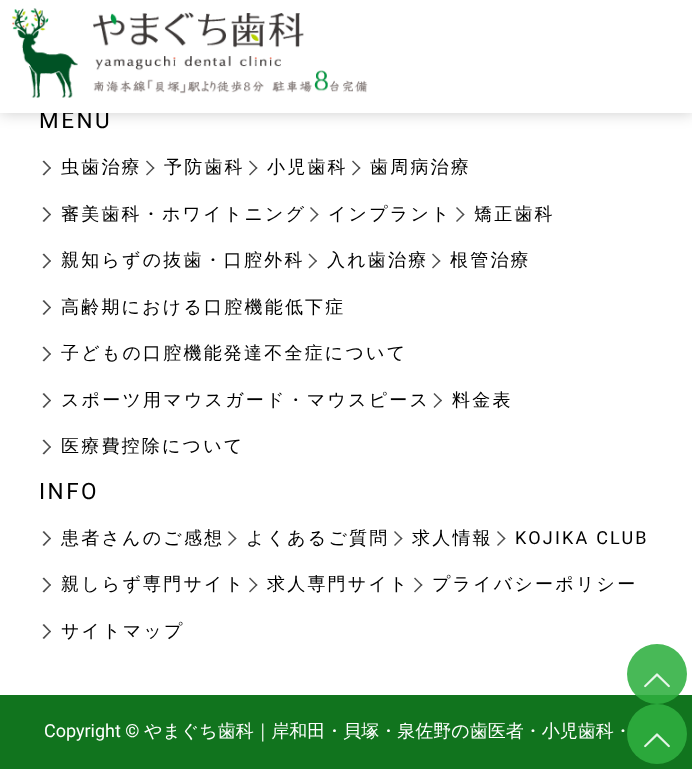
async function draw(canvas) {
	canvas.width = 692;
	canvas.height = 769;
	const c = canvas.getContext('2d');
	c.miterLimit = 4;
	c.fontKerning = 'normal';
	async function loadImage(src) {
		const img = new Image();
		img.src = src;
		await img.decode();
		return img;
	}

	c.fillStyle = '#fff';
	c.fillRect(0, 0, 692, 769);
	c.fillStyle = '#00000033';
	c.filter = 'blur(7.5px)';
	c.beginPath();
	c.rect(0, 0, 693, 113);
	c.fill();
	c.filter = 'none';
	c.letterSpacing = '2.5px';
	c.font = '22.5px Roboto';
	c.fillStyle = '#000';
	c.fillText('MENU', 39, 128);
	c.fillStyle = '#fff';
	c.fillRect(0, 0, 692, 113);
	c.drawImage(await loadImage('img1.png'), 12, 8, 356, 90);
	c.fillStyle = '#4e4e4e';
	c.beginPath();
	c.moveTo(44, 160.5);
	c.lineTo(51, 168);
	c.lineTo(50, 169);
	c.lineTo(42.5, 161.5);
	c.closePath();
	c.fill();
	c.beginPath();
	c.moveTo(50, 167);
	c.lineTo(51, 168);
	c.lineTo(44, 175.5);
	c.lineTo(42.5, 174.5);
	c.closePath();
	c.fill();
	c.letterSpacing = '2.2px';
	c.font = '500 18px WenQuanYi Zen Hei';
	c.fillStyle = '#000';
	c.fillText('虫歯治療', 61, 173);
	c.fillStyle = '#4e4e4e';
	c.beginPath();
	c.moveTo(147, 160.5);
	c.lineTo(154.5, 168);
	c.lineTo(153.5, 169);
	c.lineTo(146, 161.5);
	c.closePath();
	c.fill();
	c.beginPath();
	c.moveTo(153.5, 167);
	c.lineTo(154.5, 168);
	c.lineTo(147, 175.5);
	c.lineTo(146, 174.5);
	c.closePath();
	c.fill();
	c.fillStyle = '#000';
	c.fillText('予防歯科', 164, 173);
	c.fillStyle = '#4e4e4e';
	c.beginPath();
	c.moveTo(250, 160.5);
	c.lineTo(257.5, 168);
	c.lineTo(256.5, 169);
	c.lineTo(249, 161.5);
	c.closePath();
	c.fill();
	c.beginPath();
	c.moveTo(256.5, 167);
	c.lineTo(257.5, 168);
	c.lineTo(250, 175.5);
	c.lineTo(249, 174.5);
	c.closePath();
	c.fill();
	c.fillStyle = '#000';
	c.fillText('小児歯科', 267, 173);
	c.fillStyle = '#4e4e4e';
	c.beginPath();
	c.moveTo(353, 160.5);
	c.lineTo(360.5, 168);
	c.lineTo(359.5, 169);
	c.lineTo(352, 161.5);
	c.closePath();
	c.fill();
	c.beginPath();
	c.moveTo(359.5, 167);
	c.lineTo(360.5, 168);
	c.lineTo(353, 175.5);
	c.lineTo(352, 174.5);
	c.closePath();
	c.fill();
	c.fillStyle = '#000';
	c.fillText('歯周病治療', 370, 173);
	c.fillStyle = '#4e4e4e';
	c.beginPath();
	c.moveTo(44, 207);
	c.lineTo(51, 214.5);
	c.lineTo(50, 215.5);
	c.lineTo(42.5, 208);
	c.closePath();
	c.fill();
	c.beginPath();
	c.moveTo(50, 213.5);
	c.lineTo(51, 214.5);
	c.lineTo(44, 222);
	c.lineTo(42.5, 221);
	c.closePath();
	c.fill();
	c.fillStyle = '#000';
	c.fillText('審美歯科・ホワイトニング', 61, 220);
	c.fillStyle = '#4e4e4e';
	c.beginPath();
	c.moveTo(311, 207);
	c.lineTo(318.5, 214.5);
	c.lineTo(317.5, 215.5);
	c.lineTo(310, 208);
	c.closePath();
	c.fill();
	c.beginPath();
	c.moveTo(317.5, 213.5);
	c.lineTo(318.5, 214.5);
	c.lineTo(311, 222);
	c.lineTo(310, 221);
	c.closePath();
	c.fill();
	c.fillStyle = '#000';
	c.fillText('インプラント', 328, 220);
	c.fillStyle = '#4e4e4e';
	c.beginPath();
	c.moveTo(457, 207);
	c.lineTo(464.5, 214.5);
	c.lineTo(463.5, 215.5);
	c.lineTo(456, 208);
	c.closePath();
	c.fill();
	c.beginPath();
	c.moveTo(463.5, 213.5);
	c.lineTo(464.5, 214.5);
	c.lineTo(457, 222);
	c.lineTo(456, 221);
	c.closePath();
	c.fill();
	c.fillStyle = '#000';
	c.fillText('矯正歯科', 474, 220);
	c.fillStyle = '#4e4e4e';
	c.beginPath();
	c.moveTo(44, 253.5);
	c.lineTo(51, 261);
	c.lineTo(50, 262);
	c.lineTo(42.5, 254.5);
	c.closePath();
	c.fill();
	c.beginPath();
	c.moveTo(50, 260);
	c.lineTo(51, 261);
	c.lineTo(44, 268.5);
	c.lineTo(42.5, 267.5);
	c.closePath();
	c.fill();
	c.fillStyle = '#000';
	c.fillText('親知らずの抜歯・口腔外科', 61, 266);
	c.fillStyle = '#4e4e4e';
	c.beginPath();
	c.moveTo(309.5, 253.5);
	c.lineTo(317, 261);
	c.lineTo(316, 262);
	c.lineTo(308.5, 254.5);
	c.closePath();
	c.fill();
	c.beginPath();
	c.moveTo(316, 260);
	c.lineTo(317, 261);
	c.lineTo(309.5, 268.5);
	c.lineTo(308.5, 267.5);
	c.closePath();
	c.fill();
	c.fillStyle = '#000';
	c.fillText('入れ歯治療', 327, 266);
	c.fillStyle = '#4e4e4e';
	c.beginPath();
	c.moveTo(433, 253.5);
	c.lineTo(440.5, 261);
	c.lineTo(439.5, 262);
	c.lineTo(432, 254.5);
	c.closePath();
	c.fill();
	c.beginPath();
	c.moveTo(439.5, 260);
	c.lineTo(440.5, 261);
	c.lineTo(433, 268.5);
	c.lineTo(432, 267.5);
	c.closePath();
	c.fill();
	c.fillStyle = '#000';
	c.fillText('根管治療', 450, 266);
	c.fillStyle = '#4e4e4e';
	c.beginPath();
	c.moveTo(44, 300);
	c.lineTo(51, 307.5);
	c.lineTo(50, 308.5);
	c.lineTo(42.5, 301);
	c.closePath();
	c.fill();
	c.beginPath();
	c.moveTo(50, 306.5);
	c.lineTo(51, 307.5);
	c.lineTo(44, 315);
	c.lineTo(42.5, 314);
	c.closePath();
	c.moveTo(44, 346.5);
	c.lineTo(51, 354);
	c.lineTo(50, 355);
	c.lineTo(42.5, 347.5);
	c.closePath();
	c.fill();
	c.fillStyle = '#000';
	c.fillText('高齢期における口腔機能低下症', 61, 313);
	c.fillStyle = '#4e4e4e';
	c.beginPath();
	c.moveTo(50, 353);
	c.lineTo(51, 354);
	c.lineTo(44, 361.5);
	c.lineTo(42.5, 360.5);
	c.closePath();
	c.moveTo(44, 393);
	c.lineTo(51, 400.5);
	c.lineTo(50, 401.5);
	c.lineTo(42.5, 394);
	c.closePath();
	c.fill();
	c.fillStyle = '#000';
	c.fillText('子どもの口腔機能発達不全症について', 61, 359);
	c.fillStyle = '#4e4e4e';
	c.beginPath();
	c.moveTo(50, 399.5);
	c.lineTo(51, 400.5);
	c.lineTo(44, 408);
	c.lineTo(42.5, 407);
	c.closePath();
	c.fill();
	c.fillStyle = '#000';
	c.fillText('スポーツ用マウスガード・マウスピース', 61, 406);
	c.fillStyle = '#4e4e4e';
	c.beginPath();
	c.moveTo(434.5, 393);
	c.lineTo(442, 400.5);
	c.lineTo(441, 401.5);
	c.lineTo(433.5, 394);
	c.closePath();
	c.fill();
	c.beginPath();
	c.moveTo(441, 399.5);
	c.lineTo(442, 400.5);
	c.lineTo(434.5, 408);
	c.lineTo(433.5, 407);
	c.closePath();
	c.fill();
	c.fillStyle = '#000';
	c.fillText('料金表', 452, 406);
	c.fillStyle = '#4e4e4e';
	c.beginPath();
	c.moveTo(44, 439.5);
	c.lineTo(51, 447);
	c.lineTo(50, 448);
	c.lineTo(42.5, 440.5);
	c.closePath();
	c.fill();
	c.beginPath();
	c.moveTo(50, 446);
	c.lineTo(51, 447);
	c.lineTo(44, 454.5);
	c.lineTo(42.5, 453.5);
	c.closePath();
	c.fill();
	c.fillStyle = '#000';
	c.fillText('医療費控除について', 61, 452);
	c.letterSpacing = '2.5px';
	c.font = '22.5px Roboto';
	c.fillText('INFO', 39, 499);
	c.fillStyle = '#4e4e4e';
	c.beginPath();
	c.moveTo(44, 531);
	c.lineTo(51, 538.5);
	c.lineTo(50, 539.5);
	c.lineTo(42.5, 532);
	c.closePath();
	c.fill();
	c.beginPath();
	c.moveTo(50, 537.5);
	c.lineTo(51, 538.5);
	c.lineTo(44, 546);
	c.lineTo(42.5, 545);
	c.closePath();
	c.fill();
	c.letterSpacing = '2.2px';
	c.font = '500 18px WenQuanYi Zen Hei';
	c.fillStyle = '#000';
	c.fillText('患者さんのご感想', 61, 544);
	c.fillStyle = '#4e4e4e';
	c.beginPath();
	c.moveTo(229, 531);
	c.lineTo(236.5, 538.5);
	c.lineTo(235.5, 539.5);
	c.lineTo(228, 532);
	c.closePath();
	c.fill();
	c.beginPath();
	c.moveTo(235.5, 537.5);
	c.lineTo(236.5, 538.5);
	c.lineTo(229, 546);
	c.lineTo(228, 545);
	c.closePath();
	c.fill();
	c.fillStyle = '#000';
	c.fillText('よくあるご質問', 246, 544);
	c.fillStyle = '#4e4e4e';
	c.beginPath();
	c.moveTo(395, 531);
	c.lineTo(402.5, 538.5);
	c.lineTo(401.5, 539.5);
	c.lineTo(394, 532);
	c.closePath();
	c.fill();
	c.beginPath();
	c.moveTo(401.5, 537.5);
	c.lineTo(402.5, 538.5);
	c.lineTo(395, 546);
	c.lineTo(394, 545);
	c.closePath();
	c.fill();
	c.fillStyle = '#000';
	c.fillText('求人情報', 412, 544);
	c.fillStyle = '#4e4e4e';
	c.beginPath();
	c.moveTo(498, 531);
	c.lineTo(505.5, 538.5);
	c.lineTo(504.5, 539.5);
	c.lineTo(497, 532);
	c.closePath();
	c.fill();
	c.beginPath();
	c.moveTo(504.5, 537.5);
	c.lineTo(505.5, 538.5);
	c.lineTo(498, 546);
	c.lineTo(497, 545);
	c.closePath();
	c.fill();
	c.font = '18px Roboto';
	c.fillStyle = '#000';
	c.fillText('KOJIKA CLUB', 515, 544);
	c.fillStyle = '#4e4e4e';
	c.beginPath();
	c.moveTo(44, 577.5);
	c.lineTo(51, 585);
	c.lineTo(50, 586);
	c.lineTo(42.5, 578.5);
	c.closePath();
	c.fill();
	c.beginPath();
	c.moveTo(50, 584);
	c.lineTo(51, 585);
	c.lineTo(44, 592.5);
	c.lineTo(42.5, 591.5);
	c.closePath();
	c.fill();
	c.font = '500 18px WenQuanYi Zen Hei';
	c.fillStyle = '#000';
	c.fillText('親しらず専門サイト', 61, 590);
	c.fillStyle = '#4e4e4e';
	c.beginPath();
	c.moveTo(250, 577.5);
	c.lineTo(257.5, 585);
	c.lineTo(256.5, 586);
	c.lineTo(249, 578.5);
	c.closePath();
	c.fill();
	c.beginPath();
	c.moveTo(256.5, 584);
	c.lineTo(257.5, 585);
	c.lineTo(250, 592.5);
	c.lineTo(249, 591.5);
	c.closePath();
	c.fill();
	c.fillStyle = '#000';
	c.fillText('求人専門サイト', 267, 590);
	c.fillStyle = '#4e4e4e';
	c.beginPath();
	c.moveTo(415, 577.5);
	c.lineTo(422.5, 585);
	c.lineTo(421.5, 586);
	c.lineTo(414, 578.5);
	c.closePath();
	c.fill();
	c.beginPath();
	c.moveTo(421.5, 584);
	c.lineTo(422.5, 585);
	c.lineTo(415, 592.5);
	c.lineTo(414, 591.5);
	c.closePath();
	c.fill();
	c.fillStyle = '#000';
	c.fillText('プライバシーポリシー', 432, 590);
	c.fillStyle = '#4e4e4e';
	c.beginPath();
	c.moveTo(44, 624);
	c.lineTo(51, 631.5);
	c.lineTo(50, 632.5);
	c.lineTo(42.5, 625);
	c.closePath();
	c.fill();
	c.beginPath();
	c.moveTo(50, 630.5);
	c.lineTo(51, 631.5);
	c.lineTo(44, 639);
	c.lineTo(42.5, 638);
	c.closePath();
	c.fill();
	c.fillStyle = '#000';
	c.fillText('サイトマップ', 61, 637);
	c.fillStyle = '#11741e';
	c.fillRect(0, 695, 692, 74);
	c.letterSpacing = '0px';
	c.font = '18px Roboto';
	c.fillStyle = '#fff';
	c.fillText('Copyright ©', 44, 737);
	c.font = '500 18px WenQuanYi Zen Hei';
	c.fillText('やまぐち歯科｜岸和田・貝塚・泉佐野の歯医者・小児歯科・', 144, 737);
	c.fillStyle = '#2faf40e0';
	c.beginPath();
	c.arc(657, 674, 30, 0, 2 * Math.PI);
	c.fill();
	c.drawImage(await loadImage('img2.png'), 644, 673, 26, 15);
	c.beginPath();
	c.arc(657, 734, 30, 0, 2 * Math.PI);
	c.fill();
	c.drawImage(await loadImage('img3.png'), 644, 733, 26, 15);
}

draw(document.querySelector('canvas'));
